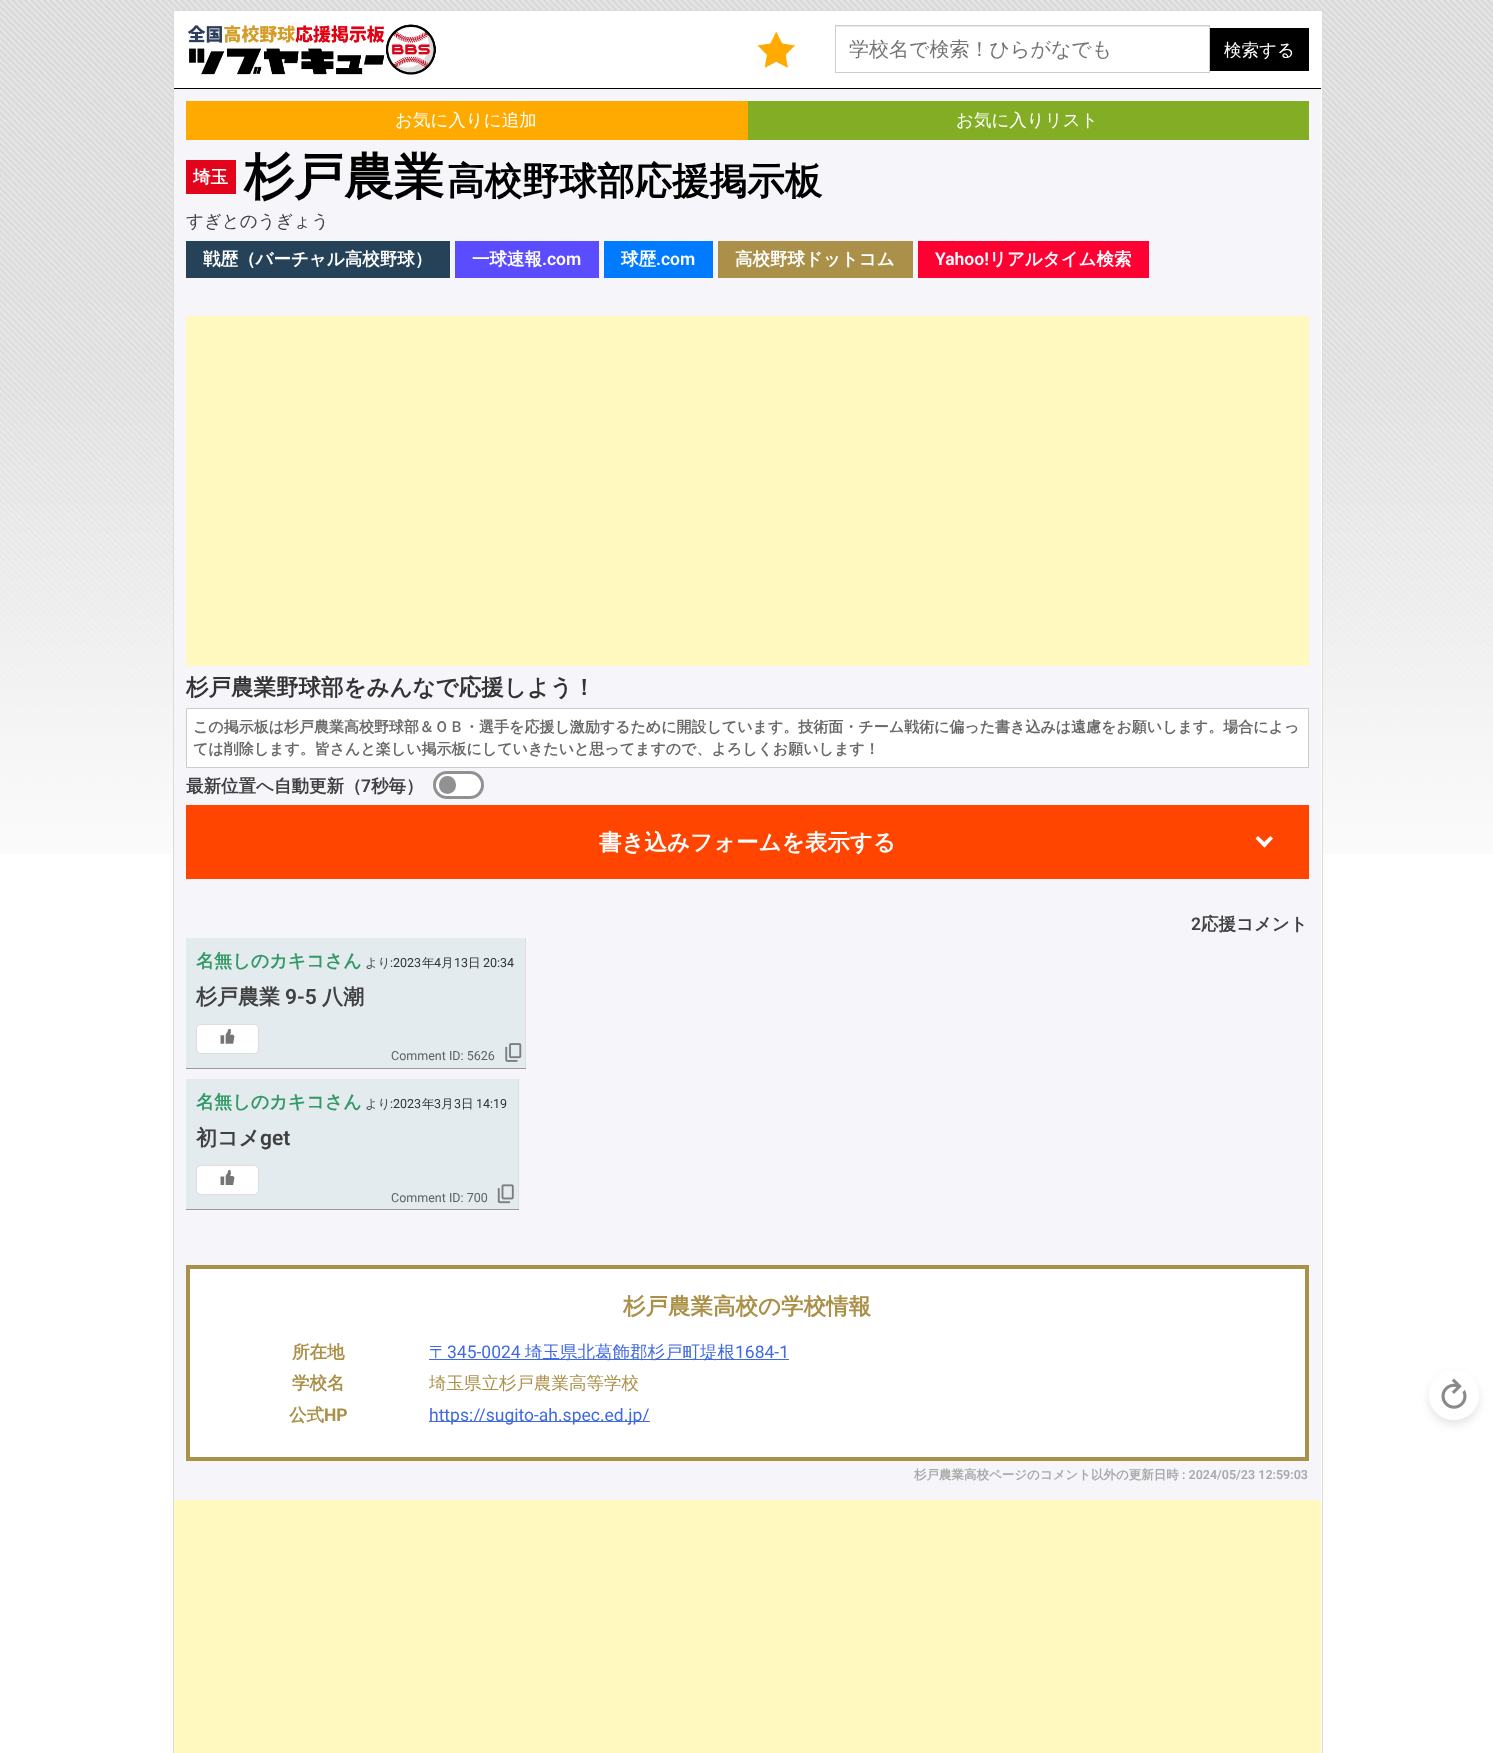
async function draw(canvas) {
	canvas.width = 1493;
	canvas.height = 1753;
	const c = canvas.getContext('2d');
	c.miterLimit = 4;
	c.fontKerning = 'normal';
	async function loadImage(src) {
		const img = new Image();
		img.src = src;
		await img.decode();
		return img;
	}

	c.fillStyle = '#fff';
	c.fillRect(0, 0, 1493, 1753);
	c.drawImage(await loadImage('img1.png'), 0, 0, 1493, 854);
	c.fillRect(174, 11, 1148, 843);
	c.strokeStyle = '#dbdbdb';
	c.strokeRect(173.5, 10.5, 1149, 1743);
	c.fillStyle = '#000';
	c.fillRect(174, 88, 1147, 1);
	c.drawImage(await loadImage('img2.png'), 188, 24, 248, 51);
	c.drawImage(await loadImage('img3.png'), 757, 31, 38, 37);
	c.fillStyle = '#ebebeb';
	c.fillRect(836, 26, 373, 1);
	c.strokeStyle = '#ccc';
	c.strokeRect(835.5, 25.5, 374, 47);
	c.font = '500 20px WenQuanYi Zen Hei';
	c.fillStyle = '#757575';
	c.fillText('学校名で検索！ひらがなでも', 849, 56);
	c.fillStyle = '#000';
	c.fillRect(1210, 28, 99, 43);
	c.font = '500 17.5px WenQuanYi Zen Hei';
	c.fillStyle = '#fff';
	c.fillText('検索する', 1224, 56);
	c.fillStyle = '#f5f5fa';
	c.fillRect(174, 89, 1147, 1411);
	c.fillStyle = '#fa0';
	c.fillRect(186, 101, 562, 39);
	c.fillStyle = '#fff';
	c.fillText('お気に入りに追加', 395, 126);
	c.fillStyle = '#82ad24';
	c.fillRect(748, 101, 561, 39);
	c.fillStyle = '#fff';
	c.fillText('お気に入りリスト', 956, 126);
	c.fillStyle = '#e2041b';
	c.fillRect(186, 160, 50, 34);
	c.font = 'bold 17.5px WenQuanYi Zen Hei';
	c.fillStyle = '#fff';
	c.fillText('埼玉', 193, 183);
	c.font = 'bold 50px WenQuanYi Zen Hei';
	c.fillStyle = '#000';
	c.fillText('杉戸農業', 244, 194);
	c.font = 'bold 37.5px WenQuanYi Zen Hei';
	c.fillText('高校野球部応援掲示板', 447, 194);
	c.font = '500 17.5px WenQuanYi Zen Hei';
	c.fillStyle = '#404040';
	c.fillText('すぎとのうぎょう', 186, 227);
	c.fillStyle = '#264259';
	c.fillRect(186, 241, 264, 37);
	c.font = 'bold 17.5px WenQuanYi Zen Hei';
	c.fillStyle = '#fff';
	c.fillText('戦歴（バーチャル高校野球）', 203, 265);
	c.fillStyle = '#5b4cff';
	c.fillRect(455, 241, 144, 37);
	c.fillStyle = '#fff';
	c.fillText('一球速報', 472, 265);
	c.font = '600 17.5px Roboto';
	c.fillText('.com', 542, 265);
	c.fillStyle = '#007bff';
	c.fillRect(604, 241, 109, 37);
	c.font = 'bold 17.5px WenQuanYi Zen Hei';
	c.fillStyle = '#fff';
	c.fillText('球歴', 621, 265);
	c.font = '600 17.5px Roboto';
	c.fillText('.com', 656, 265);
	c.fillStyle = '#aa9048';
	c.fillRect(718, 241, 195, 37);
	c.font = 'bold 17.5px WenQuanYi Zen Hei';
	c.fillStyle = '#fff';
	c.fillText('高校野球ドットコム', 735, 265);
	c.fillStyle = '#f03';
	c.fillRect(918, 241, 231, 37);
	c.font = '600 17.5px Roboto';
	c.fillStyle = '#fff';
	c.fillText('Yahoo!', 935, 265);
	c.font = 'bold 17.5px WenQuanYi Zen Hei';
	c.fillText('リアルタイム検索', 989, 265);
	c.save();
	c.beginPath();
	c.moveTo(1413, 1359);
	c.lineTo(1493, 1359);
	c.lineTo(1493, 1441);
	c.lineTo(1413, 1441);
	c.closePath();
	c.moveTo(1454, 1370);
	c.bezierCurveTo(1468, 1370, 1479, 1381, 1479, 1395);
	c.bezierCurveTo(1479, 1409, 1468, 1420, 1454, 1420);
	c.bezierCurveTo(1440, 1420, 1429, 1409, 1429, 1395);
	c.bezierCurveTo(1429, 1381, 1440, 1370, 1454, 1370);
	c.closePath();
	c.clip('evenodd');
	c.fillStyle = '#0000001a';
	c.filter = 'blur(5px)';
	c.beginPath();
	c.roundRect(1429, 1375, 50, 50, 25);
	c.fill();
	c.filter = 'none';
	c.restore();
	c.fillStyle = '#ffffffcc';
	c.beginPath();
	c.arc(1454, 1395, 25, 0, 2 * Math.PI);
	c.fill();
	c.drawImage(await loadImage('img4.png'), 1441, 1378, 26, 31);
	c.fillStyle = '#fff9c0';
	c.fillRect(186, 316, 1123, 350);
	c.font = 'bold 22.5px WenQuanYi Zen Hei';
	c.fillStyle = '#333';
	c.fillText('杉戸農業野球部をみんなで応援しよう！', 186, 695);
	c.fillStyle = '#fff';
	c.beginPath();
	c.rect(186.5, 708.5, 1122, 59);
	c.fill();
	c.stroke();
	c.font = 'bold 15px WenQuanYi Zen Hei';
	c.fillStyle = '#696969';
	c.fillText('この掲示板は杉戸農業高校野球部＆ＯＢ・選手を応援し激励するために開設しています。技術面・チーム戦術に偏った書き込みは遠慮をお願いします。場合によっ', 193, 732);
	c.fillText('ては削除します。皆さんと楽しい掲示板にしていきたいと思ってますので、よろしくお願いします！', 193, 754);
	c.font = 'bold 17.5px WenQuanYi Zen Hei';
	c.fillStyle = '#404040';
	c.fillText('最新位置へ自動更新（', 186, 792);
	c.font = '600 17.5px Roboto';
	c.fillText('7', 361, 792);
	c.font = 'bold 17.5px WenQuanYi Zen Hei';
	c.fillText('秒毎）', 371, 792);
	c.fillStyle = '#fff';
	c.beginPath();
	c.roundRect(434.5, 772.5, 48, 25, 12.5);
	c.fill();
	c.strokeStyle = '#919191';
	c.lineWidth = 3;
	c.stroke();
	c.fillStyle = '#919191';
	c.beginPath();
	c.roundRect(439, 776, 17, 18, 8.5);
	c.fill();
	c.fillStyle = '#ff4500';
	c.fillRect(186, 805, 1123, 74);
	c.font = 'bold 22.5px WenQuanYi Zen Hei';
	c.fillStyle = '#fff';
	c.fillText('書き込みフォームを表示する', 599, 850);
	c.beginPath();
	c.moveTo(1270.5, 836);
	c.lineTo(1273, 838.5);
	c.lineTo(1264.5, 847.5);
	c.lineTo(1261.5, 844.5);
	c.closePath();
	c.fill();
	c.beginPath();
	c.moveTo(1258, 836);
	c.lineTo(1267, 844.5);
	c.lineTo(1264.5, 847.5);
	c.lineTo(1255.5, 838.5);
	c.closePath();
	c.fill();
	c.font = '600 17.5px Roboto';
	c.fillStyle = '#404040';
	c.fillText('2', 1191, 930);
	c.font = 'bold 17.5px WenQuanYi Zen Hei';
	c.fillText('応援コメント', 1201, 930);
	for (const [x, y, w, h, color] of [
		[186, 938, 339, 130, '#e3ebee'],
		[525, 938, 1, 131, '#ddd'],
		[186, 1068, 340, 1, '#999'],
	]) {
		c.fillStyle = color;
		c.fillRect(x, y, w, h);
	}
	c.font = 'bold 18.1px WenQuanYi Zen Hei';
	c.fillStyle = '#396';
	c.fillText('名無しのカキコさん', 196, 967);
	c.font = '500 12.5px WenQuanYi Zen Hei';
	c.fillStyle = '#404040';
	c.fillText('より', 365, 967);
	c.font = '12.5px Roboto';
	c.fillText(':', 390, 967);
	c.fillStyle = '#333';
	c.fillText('2023', 393, 967);
	c.font = '500 12.5px WenQuanYi Zen Hei';
	c.fillText('年', 422, 967);
	c.font = '12.5px Roboto';
	c.fillText('4', 434, 967);
	c.font = '500 12.5px WenQuanYi Zen Hei';
	c.fillText('月', 441, 967);
	c.font = '12.5px Roboto';
	c.fillText('13', 454, 967);
	c.font = '500 12.5px WenQuanYi Zen Hei';
	c.fillText('日', 468, 967);
	c.font = '12.5px Roboto';
	c.fillText('20:34', 483, 967);
	c.font = 'bold 21px WenQuanYi Zen Hei';
	c.fillStyle = '#404040';
	c.fillText('杉戸農業', 196, 1004);
	c.font = '600 21px Roboto';
	c.fillText('9-5', 285, 1004);
	c.font = 'bold 21px WenQuanYi Zen Hei';
	c.fillText('八潮', 322, 1004);
	c.drawImage(await loadImage('img5.png'), 505, 1043, 17, 19);
	c.fillStyle = '#fff';
	c.beginPath();
	c.roundRect(196.5, 1024.5, 62, 29, 4.5);
	c.fill();
	c.strokeStyle = '#ddd';
	c.lineWidth = 1;
	c.stroke();
	c.drawImage(await loadImage('img6.png'), 220, 1029, 15, 15);
	c.font = '12.5px Roboto';
	c.fillStyle = '#616161';
	c.fillText('Comment ID: 5626', 391, 1060);
	for (const [x, y, w, h, color] of [
		[186, 1079, 332, 130, '#e3ebee'],
		[518, 1079, 1, 131, '#ddd'],
		[186, 1209, 333, 1, '#999'],
	]) {
		c.fillStyle = color;
		c.fillRect(x, y, w, h);
	}
	c.font = 'bold 18.1px WenQuanYi Zen Hei';
	c.fillStyle = '#396';
	c.fillText('名無しのカキコさん', 196, 1108);
	c.font = '500 12.5px WenQuanYi Zen Hei';
	c.fillStyle = '#404040';
	c.fillText('より', 365, 1108);
	c.font = '12.5px Roboto';
	c.fillText(':', 390, 1108);
	c.fillStyle = '#333';
	c.fillText('2023', 393, 1108);
	c.font = '500 12.5px WenQuanYi Zen Hei';
	c.fillText('年', 422, 1108);
	c.font = '12.5px Roboto';
	c.fillText('3', 434, 1108);
	c.font = '500 12.5px WenQuanYi Zen Hei';
	c.fillText('月', 441, 1108);
	c.font = '12.5px Roboto';
	c.fillText('3', 454, 1108);
	c.font = '500 12.5px WenQuanYi Zen Hei';
	c.fillText('日', 461, 1108);
	c.font = '12.5px Roboto';
	c.fillText('14:19', 476, 1108);
	c.font = 'bold 21px WenQuanYi Zen Hei';
	c.fillStyle = '#404040';
	c.fillText('初コメ', 196, 1145);
	c.font = '600 21px Roboto';
	c.fillText('get', 260, 1145);
	c.drawImage(await loadImage('img7.png'), 497, 1184, 17, 20);
	c.fillStyle = '#fff';
	c.beginPath();
	c.roundRect(196.5, 1165.5, 62, 29, 4.5);
	c.fill();
	c.stroke();
	c.drawImage(await loadImage('img8.png'), 220, 1170, 15, 15);
	c.font = '12.5px Roboto';
	c.fillStyle = '#616161';
	c.fillText('Comment ID: 700', 391, 1202);
	c.fillStyle = '#fff';
	c.beginPath();
	c.rect(188, 1267, 1119, 192);
	c.fill();
	c.strokeStyle = '#aa9048';
	c.lineWidth = 4;
	c.stroke();
	c.font = 'bold 22.5px WenQuanYi Zen Hei';
	c.fillStyle = '#aa9048';
	c.fillText('杉戸農業高校の学校情報', 623, 1314);
	c.font = 'bold 17.5px WenQuanYi Zen Hei';
	c.fillText('所在地', 292, 1358);
	c.font = '500 17.5px WenQuanYi Zen Hei';
	c.fillStyle = '#4169e1';
	c.fillText('〒', 429, 1358);
	c.fillRect(429, 1359, 360, 1);
	c.font = '17.5px Roboto';
	c.fillText('345-0024', 447, 1358);
	c.font = '500 17.5px WenQuanYi Zen Hei';
	c.fillText('埼玉県北葛飾郡杉戸町堤根', 525, 1358);
	c.font = '17.5px Roboto';
	c.fillText('1684-1', 735, 1358);
	c.font = 'bold 17.5px WenQuanYi Zen Hei';
	c.fillStyle = '#aa9048';
	c.fillText('学校名', 292, 1389);
	c.font = '500 17.5px WenQuanYi Zen Hei';
	c.fillText('埼玉県立杉戸農業高等学校', 429, 1389);
	c.font = 'bold 17.5px WenQuanYi Zen Hei';
	c.fillText('公式', 289, 1421);
	c.font = 'bold 17.5px Roboto';
	c.fillText('HP', 324, 1421);
	c.fillStyle = '#4169e1';
	c.fillRect(429, 1421, 221, 1);
	c.font = '17.5px Roboto';
	c.fillText('https://sugito-ah.spec.ed.jp/', 429, 1421);
	c.font = 'bold 12.5px WenQuanYi Zen Hei';
	c.fillStyle = '#a9a9a9';
	c.fillText('杉戸農業高校ページのコメント以外の更新日時', 914, 1479);
	c.font = '600 12.5px Roboto';
	c.fillText(': 2024/05/23 12:59:03', 1182, 1479);
	c.fillStyle = '#fff9c0';
	c.fillRect(174, 1500, 1147, 253);
}

draw(document.querySelector('canvas'));
